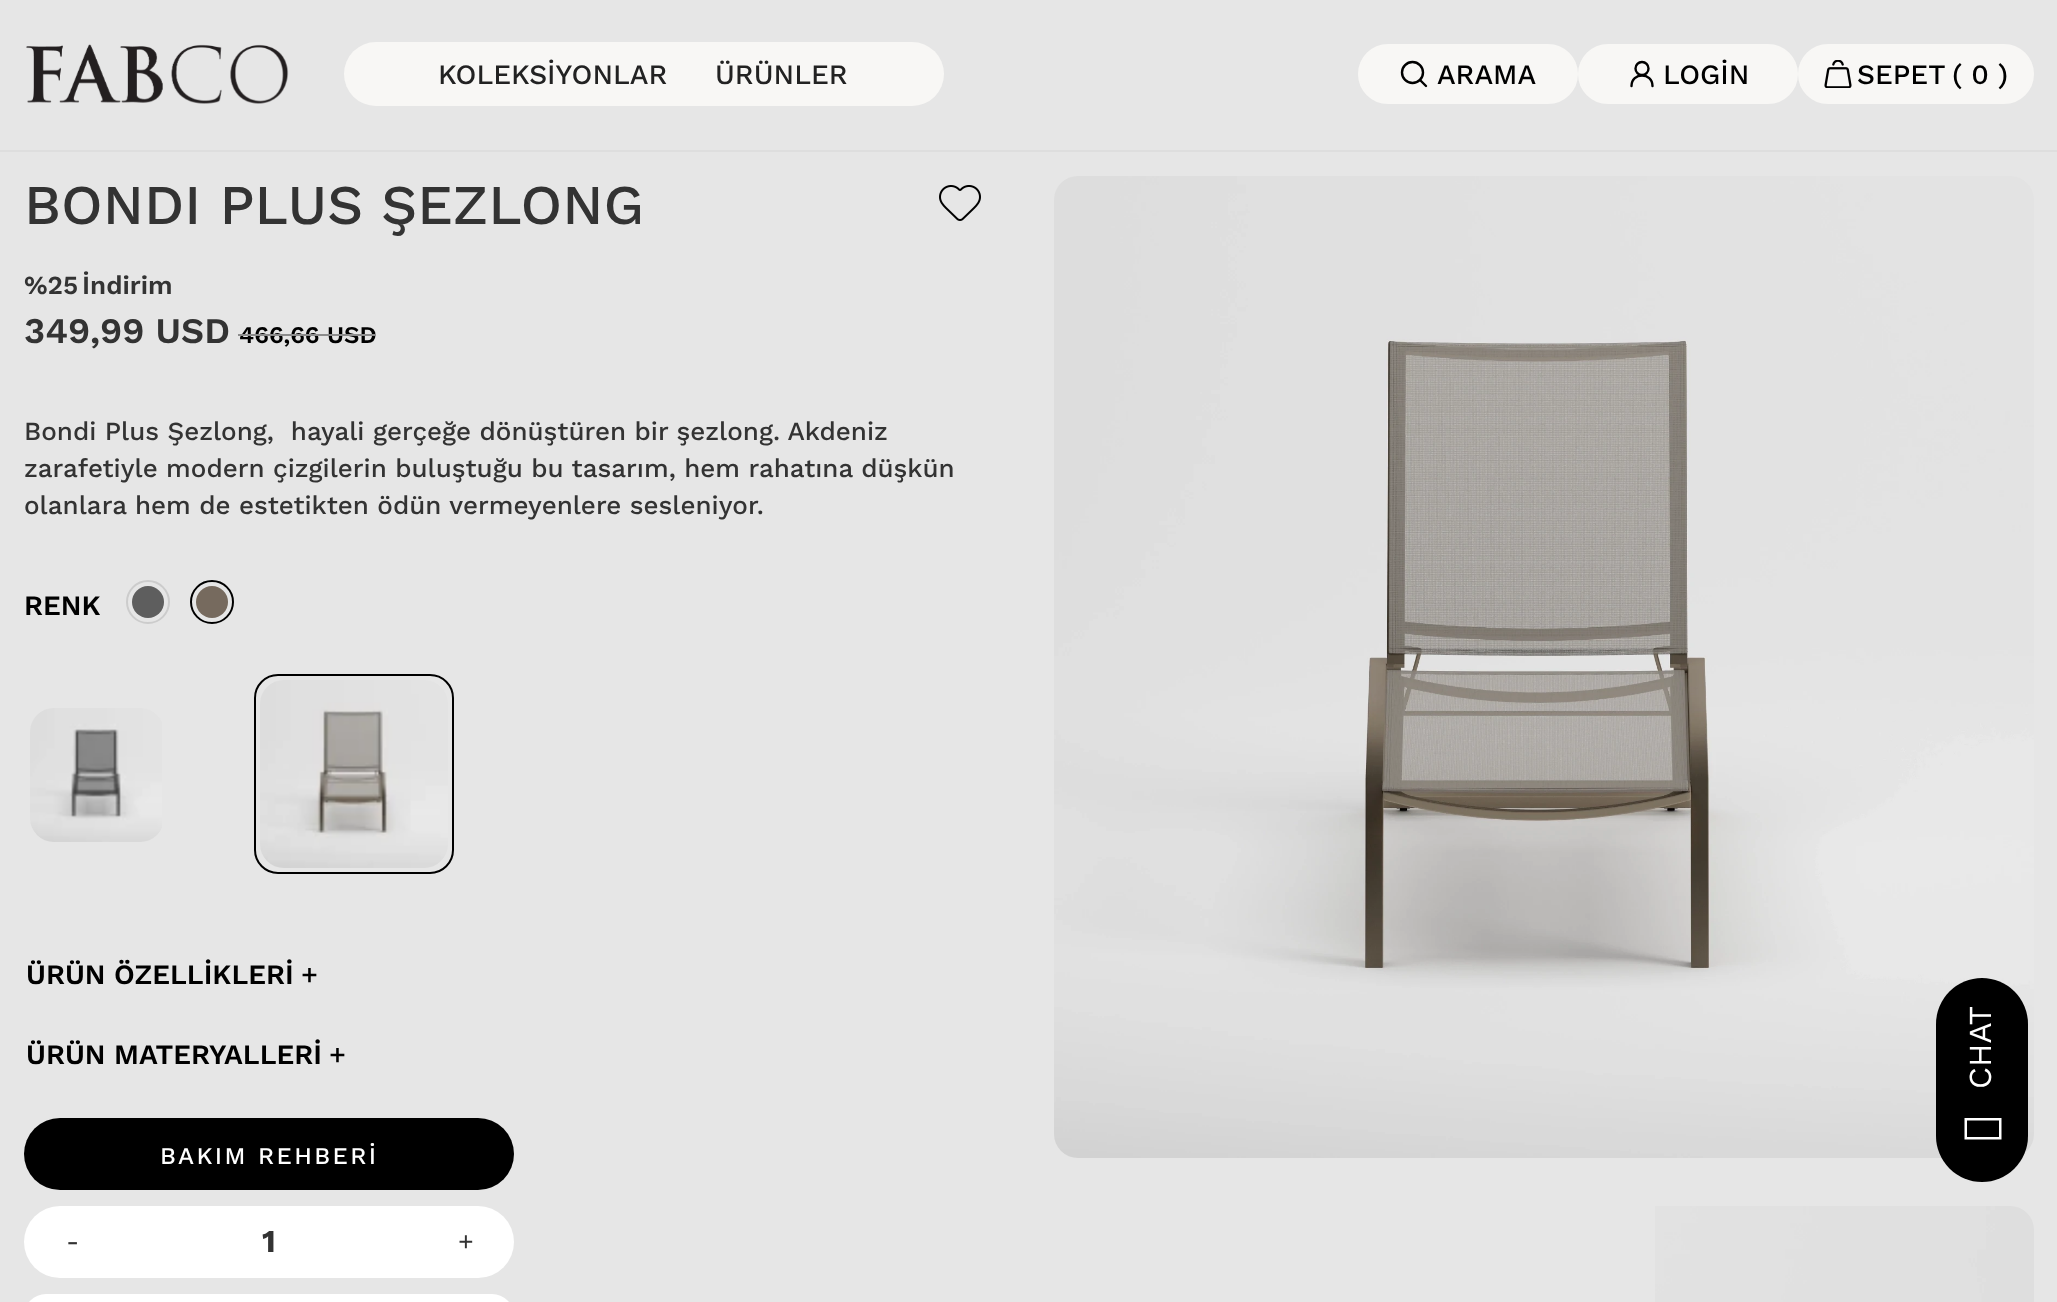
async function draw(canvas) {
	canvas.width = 2057;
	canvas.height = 1302;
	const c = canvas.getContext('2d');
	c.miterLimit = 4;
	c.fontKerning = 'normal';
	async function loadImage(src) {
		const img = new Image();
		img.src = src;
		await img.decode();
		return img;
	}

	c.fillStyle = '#dedede';
	c.fillRect(0, 0, 2057, 1302);
	c.fillStyle = '#e6e6e6';
	c.fillRect(0, 0, 2057, 150);
	c.drawImage(await loadImage('img1.png'), 26, 44, 263, 60);
	c.fillStyle = '#f8f7f5';
	c.beginPath();
	c.roundRect(344, 42, 600, 64, 32);
	c.fill();
	c.font = '500 28px Work Sans';
	c.fillStyle = '#222';
	c.fillText('KOLEKSİYONLAR', 438, 84);
	c.fillText('ÜRÜNLER', 715, 84);
	c.fillStyle = '#f8f7f5';
	c.beginPath();
	c.roundRect(1359, 45, 218, 58, 29);
	c.fill();
	c.strokeStyle = '#f8f7f5';
	c.lineWidth = 2;
	c.stroke();
	c.beginPath();
	c.moveTo(1426, 86);
	c.lineTo(1420, 80);
	c.strokeStyle = '#000';
	c.lineWidth = 2.4;
	c.lineCap = 'round';
	c.lineJoin = 'round';
	c.stroke();
	c.beginPath();
	c.arc(1412.5, 72.5, 10.5, 0, 2 * Math.PI);
	c.stroke();
	c.fillStyle = '#000';
	c.fillText('ARAMA', 1437, 84);
	c.fillStyle = '#f8f7f5';
	c.beginPath();
	c.roundRect(1579, 45, 218, 58, 29);
	c.fill();
	c.strokeStyle = '#f8f7f5';
	c.lineWidth = 2;
	c.lineJoin = 'miter';
	c.stroke();
	c.beginPath();
	c.arc(1642, 68.5, 6.5, 0, 2 * Math.PI);
	c.strokeStyle = '#000';
	c.lineWidth = 2.4;
	c.stroke();
	c.beginPath();
	c.moveTo(1652.5, 86);
	c.bezierCurveTo(1652.5, 72, 1631.5, 72, 1631.5, 86);
	c.lineJoin = 'round';
	c.stroke();
	c.fillStyle = '#000';
	c.fillText('LOGİN', 1663, 84);
	c.fillStyle = '#f8f7f5';
	c.beginPath();
	c.roundRect(1799, 45, 234, 58, 29);
	c.fill();
	c.strokeStyle = '#f8f7f5';
	c.lineWidth = 2;
	c.lineJoin = 'miter';
	c.stroke();
	c.drawImage(await loadImage('img2.png'), 1824, 60, 28, 28);
	c.fillStyle = '#000';
	c.fillText('SEPET', 1857, 84);
	c.fillText('( 0 )', 1952, 84);
	c.fillStyle = '#e6e6e6';
	c.fillRect(0, 152, 2057, 1150);
	c.font = '500 56px Work Sans';
	c.fillStyle = '#333';
	c.fillText('BONDI PLUS ŞEZLONG', 24, 224);
	c.drawImage(await loadImage('img3.png'), 939, 185, 42, 36);
	c.font = '600 26px Work Sans';
	c.fillText('%25', 24, 294);
	c.fillText('İndirim', 82, 294);
	c.font = '600 36px Work Sans';
	c.fillText('349,99 USD', 24, 343);
	c.font = '600 24px Work Sans';
	c.fillStyle = '#000';
	c.fillText('466,66 USD', 239, 343);
	c.fillStyle = '#8c8c8c';
	c.fillRect(238, 334, 138, 2);
	c.font = '500 26px Work Sans';
	c.fillStyle = '#333';
	for (const [text, x, y] of [
		['Bondi Plus Şezlong,  hayali gerçeğe dönüştüren bir şezlong. Akdeniz', 24, 440],
		['zarafetiyle modern çizgilerin buluştuğu bu tasarım, hem rahatına düşkün', 24, 477],
		['olanlara hem de estetikten ödün vermeyenlere sesleniyor.', 24, 514],
	]) {
		c.fillText(text, x, y);
	}
	c.font = '600 28px Work Sans';
	c.fillStyle = '#000';
	c.fillText('RENK', 24, 615);
	c.fillStyle = '#5e5e5e';
	c.beginPath();
	c.arc(148, 602, 16, 0, 2 * Math.PI);
	c.fill();
	c.beginPath();
	c.arc(148, 602, 21, 0, 2 * Math.PI);
	c.strokeStyle = '#ccc';
	c.stroke();
	c.fillStyle = '#766a5e';
	c.beginPath();
	c.arc(212, 602, 16, 0, 2 * Math.PI);
	c.fill();
	c.beginPath();
	c.arc(212, 602, 21, 0, 2 * Math.PI);
	c.strokeStyle = '#000';
	c.stroke();
	c.drawImage(await loadImage('img4.png'), 30, 708, 132, 134);
	c.beginPath();
	c.roundRect(255, 675, 198, 198, 23);
	c.stroke();
	c.drawImage(await loadImage('img5.png'), 260, 680, 188, 188);
	c.fillStyle = '#000';
	c.fillText('ÜRÜN ÖZELLİKLERİ', 26, 984);
	c.font = '500 28px Work Sans';
	c.fillText('+', 301, 984);
	c.font = '600 28px Work Sans';
	c.fillText('ÜRÜN MATERYALLERİ', 26, 1064);
	c.font = '500 28px Work Sans';
	c.fillText('+', 329, 1064);
	c.beginPath();
	c.roundRect(24, 1118, 490, 72, 36);
	c.fill();
	c.letterSpacing = '2.4px';
	c.font = '500 24px Work Sans';
	c.fillStyle = '#fff';
	c.fillText('BAKIM REHBERİ', 160, 1164);
	c.beginPath();
	c.roundRect(24, 1206, 490, 72, 36);
	c.fill();
	c.letterSpacing = '0px';
	c.font = '26px Work Sans';
	c.fillStyle = '#333';
	c.fillText('-', 66, 1250);
	c.font = 'bold 32px Work Sans';
	c.fillText('1', 262, 1252);
	c.font = '26px Work Sans';
	c.fillText('+', 458, 1250);
	c.fillStyle = '#fff';
	c.beginPath();
	c.roundRect(24, 1294, 490, 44, 36);
	c.fill();
	c.drawImage(await loadImage('img6.png'), 1054, 176, 980, 982);
	c.drawImage(await loadImage('img7.png'), 1655, 1206, 379, 96);
	c.fillStyle = '#000';
	c.beginPath();
	c.roundRect(1936, 978, 92, 204, 46);
	c.fill();
	c.font = '32px Work Sans';
	c.fillStyle = '#fff';
	c.save();
	c.translate(1991, 1089);
	c.rotate(-90 * Math.PI / 180);
	c.fillText('CHAT', 0, 0);
	c.restore();
	c.beginPath();
	c.moveTo(2001.5, 1139.5);
	c.lineTo(1964.5, 1139.5);
	c.lineTo(1964.5, 1118);
	c.lineTo(2001.5, 1118);
	c.closePath();
	c.moveTo(1999, 1137);
	c.lineTo(1999, 1120.5);
	c.lineTo(1967, 1120.5);
	c.lineTo(1967, 1137);
	c.closePath();
	c.fill();
}

draw(document.querySelector('canvas'));
